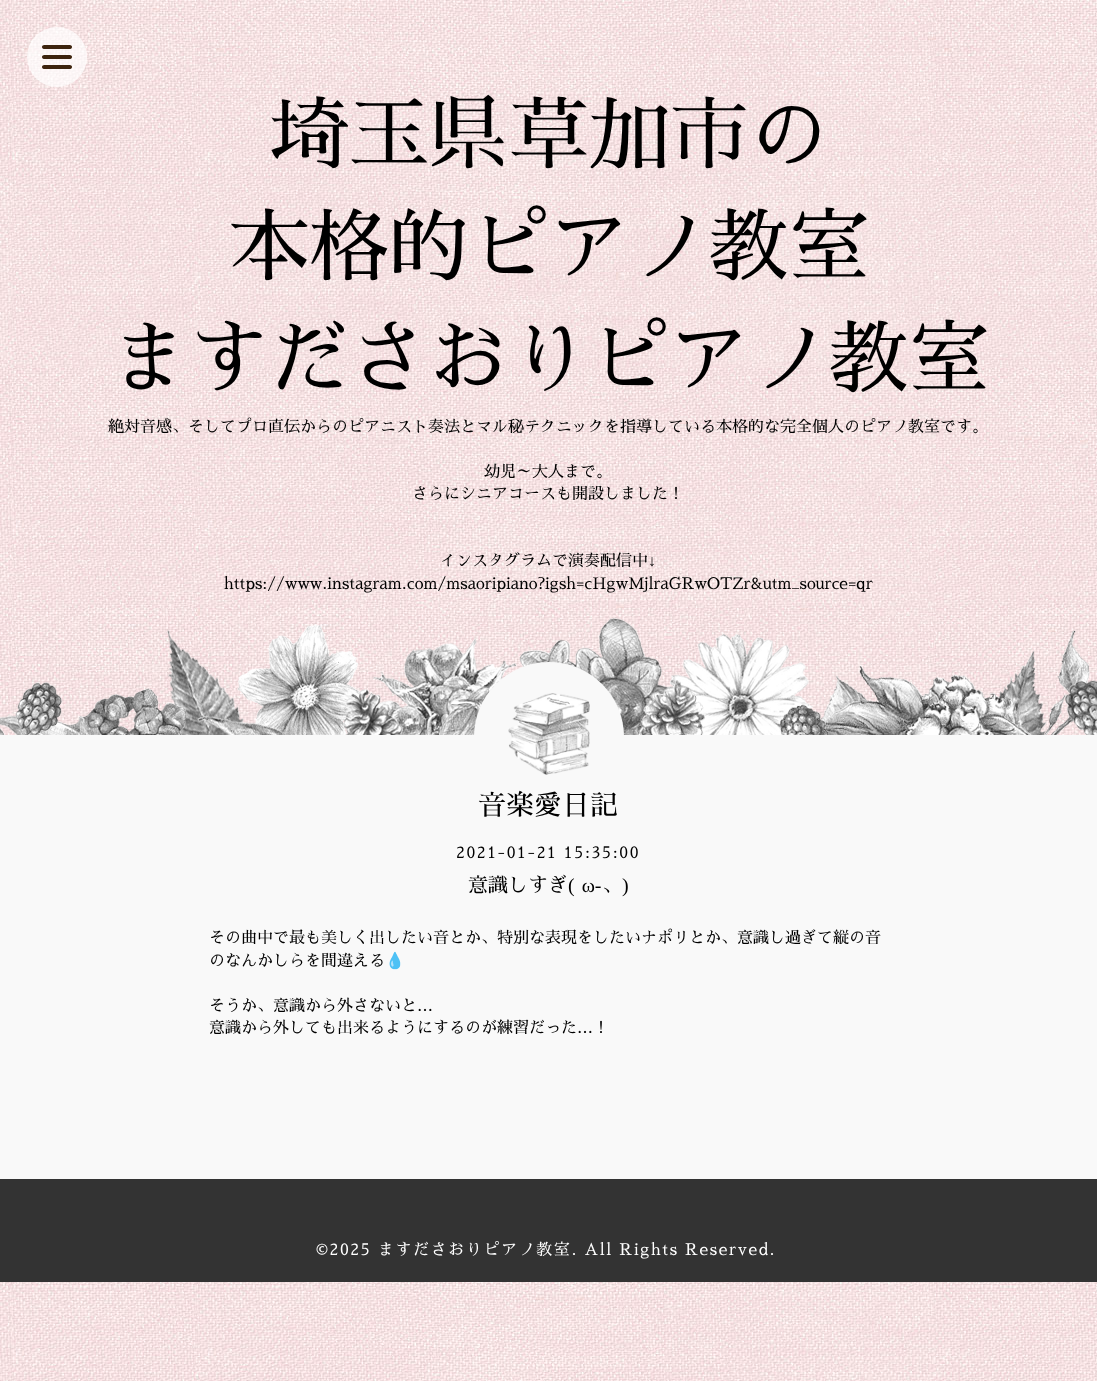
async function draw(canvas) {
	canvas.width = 1097;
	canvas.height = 1381;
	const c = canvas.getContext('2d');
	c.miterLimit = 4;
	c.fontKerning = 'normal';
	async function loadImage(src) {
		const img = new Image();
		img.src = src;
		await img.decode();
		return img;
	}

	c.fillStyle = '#fff';
	c.fillRect(0, 0, 1097, 1381);
	c.drawImage(await loadImage('img1.png'), 0, 0, 1097, 1381);
	c.fillStyle = '#ffffffb3';
	c.beginPath();
	c.arc(57, 57, 30, 0, 2 * Math.PI);
	c.fill();
	c.drawImage(await loadImage('img2.png'), 42, 45, 30, 24);
	c.drawImage(await loadImage('img3.png'), 0, 618, 1097, 117);
	c.font = '80px Sawarabi Mincho';
	c.fillStyle = '#000';
	for (const [text, x, y] of [
		['埼玉県草加市の', 269, 163],
		['本格的ピアノ教室', 229, 275],
		['ますださおりピアノ教室', 109, 387],
	]) {
		c.fillText(text, x, y);
	}
	c.font = '16px Sawarabi Mincho';
	for (const [text, x, y] of [
		['絶対音感、そしてプロ直伝からのピアニスト奏法とマル秘テクニックを指導している本格的な完全個人のピアノ教室です。', 108, 432],
		['幼児～大人まで。', 484, 477],
		['さらにシニアコースも開設しました！', 412, 499],
		['インスタグラムで演奏配信中', 440, 566],
	]) {
		c.fillText(text, x, y);
	}
	c.font = '16px Liberation Serif';
	c.fillText('↓', 648, 566);
	c.font = '16px Sawarabi Mincho';
	c.fillText('https://www.instagram.com/msaoripiano?igsh=cHgwMjlraGRwOTZr&utm_source=qr', 224, 589);
	c.fillStyle = '#f9f9f9';
	c.fillRect(0, 735, 1097, 444);
	c.beginPath();
	c.arc(549, 737, 75, 0, 2 * Math.PI);
	c.fill();
	c.drawImage(await loadImage('img4.png'), 508, 693, 82, 82);
	c.font = '28px Sawarabi Mincho';
	c.fillStyle = '#000';
	c.fillText('音楽愛日記', 478, 815);
	c.letterSpacing = '1.6px';
	c.font = '16px Sawarabi Mincho';
	c.fillText('2021-01-21 15:35:00', 456, 858);
	c.letterSpacing = '0px';
	c.font = '20px Sawarabi Mincho';
	c.fillText('意識しすぎ', 468, 892);
	c.wordSpacing = '2px';
	c.font = '20px Liberation Serif';
	c.fillText('( ω-', 568, 892);
	c.wordSpacing = '0px';
	c.font = '20px Sawarabi Mincho';
	c.fillText('、', 602, 892);
	c.font = '20px Liberation Serif';
	c.fillText(')', 622, 892);
	c.font = '16px Sawarabi Mincho';
	c.fillText('その曲中で最も美しく出したい音とか、特別な表現をしたいナポリとか、意識し過ぎて縦の音', 209, 943);
	c.fillText('のなんかしらを間違える', 209, 966);
	c.font = '16px Noto Color Emoji';
	c.fillText('💧', 385, 966);
	c.font = '16px Sawarabi Mincho';
	c.fillText('そうか、意識から外さないと…', 209, 1011);
	c.fillText('意識から外しても出来るようにするのが練習だった…！', 209, 1033);
	c.fillStyle = '#333';
	c.fillRect(0, 1179, 1097, 103);
	c.letterSpacing = '1.6px';
	c.fillStyle = '#fff';
	c.fillText('©2025 ますださおりピアノ教室. All Rights Reserved.', 316, 1255);
}

draw(document.querySelector('canvas'));
